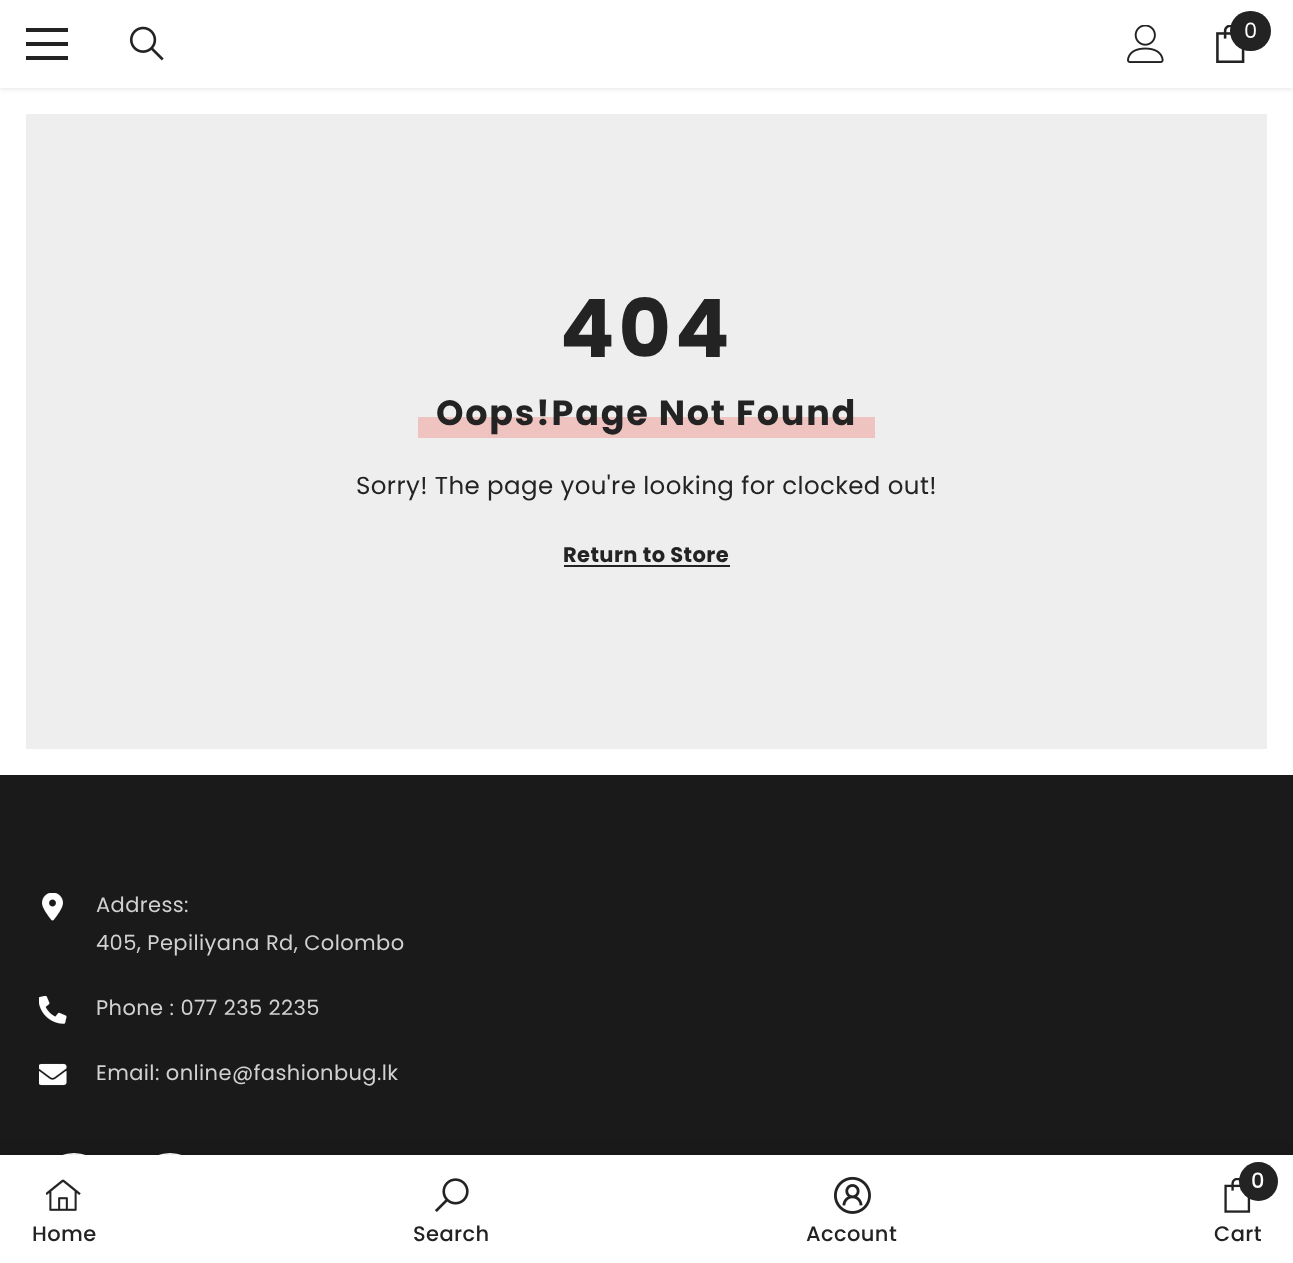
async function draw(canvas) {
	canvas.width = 1293;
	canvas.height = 1263;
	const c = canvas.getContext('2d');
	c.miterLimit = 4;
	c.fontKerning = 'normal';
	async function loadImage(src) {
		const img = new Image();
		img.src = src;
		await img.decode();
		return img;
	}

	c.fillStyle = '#fff';
	c.fillRect(0, 0, 1293, 1263);
	c.fillStyle = '#0000001a';
	c.filter = 'blur(2.5px)';
	c.beginPath();
	c.rect(0, 2, 1293, 87);
	c.fill();
	c.filter = 'none';
	for (const [x, y, w, h, color] of [
		[0, 0, 1293, 88, '#fff'],
		[26, 42, 42, 4, '#232323'],
		[26, 28, 42, 4, '#232323'],
		[26, 56, 42, 4, '#232323'],
	]) {
		c.fillStyle = color;
		c.fillRect(x, y, w, h);
	}
	c.drawImage(await loadImage('img1.png'), 129, 26, 35, 35);
	c.drawImage(await loadImage('img2.png'), 1127, 25, 37, 38);
	c.drawImage(await loadImage('img3.png'), 1216, 25, 29, 38);
	c.beginPath();
	c.roundRect(1230, 11, 41, 40, 20);
	c.fill();
	c.font = '21px Poppins';
	c.fillStyle = '#fff';
	c.fillText('0', 1244, 38);
	c.fillStyle = '#eee';
	c.fillRect(26, 114, 1241, 635);
	c.letterSpacing = '4px';
	c.font = 'bold 80.5px Poppins';
	c.fillStyle = '#232323';
	c.fillText('404', 560, 357);
	c.fillStyle = '#efc3c0';
	c.fillRect(418, 417, 457, 21);
	c.letterSpacing = '1.75px';
	c.font = 'bold 35px Poppins';
	c.fillStyle = '#232323';
	c.fillText('Oops!Page Not Found', 436, 425);
	c.letterSpacing = '0.4px';
	c.font = '24.5px Poppins';
	c.fillText('Sorry! The page you\'re looking for clocked out!', 356, 494);
	c.font = 'bold 21px Poppins';
	c.fillText('Return to Store', 563, 562);
	c.fillRect(564, 565, 166, 2);
	c.fillStyle = '#1a1a1a';
	c.fillRect(0, 775, 1293, 380);
	c.drawImage(await loadImage('img4.png'), 42, 893, 21, 28);
	c.font = '21px Poppins';
	c.fillStyle = '#d1d1d1';
	c.fillText('Address:', 96, 912);
	c.fillText('405, Pepiliyana Rd, Colombo', 96, 950);
	c.drawImage(await loadImage('img5.png'), 39, 996, 28, 28);
	c.fillText('Phone : 077 235 2235', 96, 1015);
	c.drawImage(await loadImage('img6.png'), 39, 1063, 28, 23);
	c.fillText('Email: online@fashionbug.lk', 96, 1080);
	c.beginPath();
	c.arc(74, 1188, 34, 0, 2 * Math.PI);
	c.strokeStyle = '#fff';
	c.lineWidth = 2;
	c.stroke();
	c.beginPath();
	c.arc(170, 1188, 34, 0, 2 * Math.PI);
	c.stroke();
	c.fillStyle = '#0000001f';
	c.filter = 'blur(8px)';
	c.beginPath();
	c.rect(0, 1155, 1293, 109);
	c.fill();
	c.filter = 'none';
	c.fillStyle = '#fff';
	c.fillRect(0, 1155, 1293, 108);
	c.drawImage(await loadImage('img7.png'), 46, 1179, 35, 32);
	c.font = '500 21px Poppins';
	c.fillStyle = '#232323';
	c.fillText('Home', 32, 1241);
	c.drawImage(await loadImage('img8.png'), 435, 1178, 34, 34);
	c.fillText('Search', 413, 1241);
	c.drawImage(await loadImage('img9.png'), 834, 1176, 37, 38);
	c.fillText('Account', 806, 1241);
	c.drawImage(await loadImage('img10.png'), 1224, 1178, 27, 35);
	c.beginPath();
	c.arc(1258.5, 1181.5, 19.5, 0, 2 * Math.PI);
	c.fill();
	c.letterSpacing = '0px';
	c.fillStyle = '#fff';
	c.fillText('0', 1251, 1188);
	c.letterSpacing = '0.4px';
	c.fillStyle = '#232323';
	c.fillText('Cart', 1214, 1241);
}

draw(document.querySelector('canvas'));
